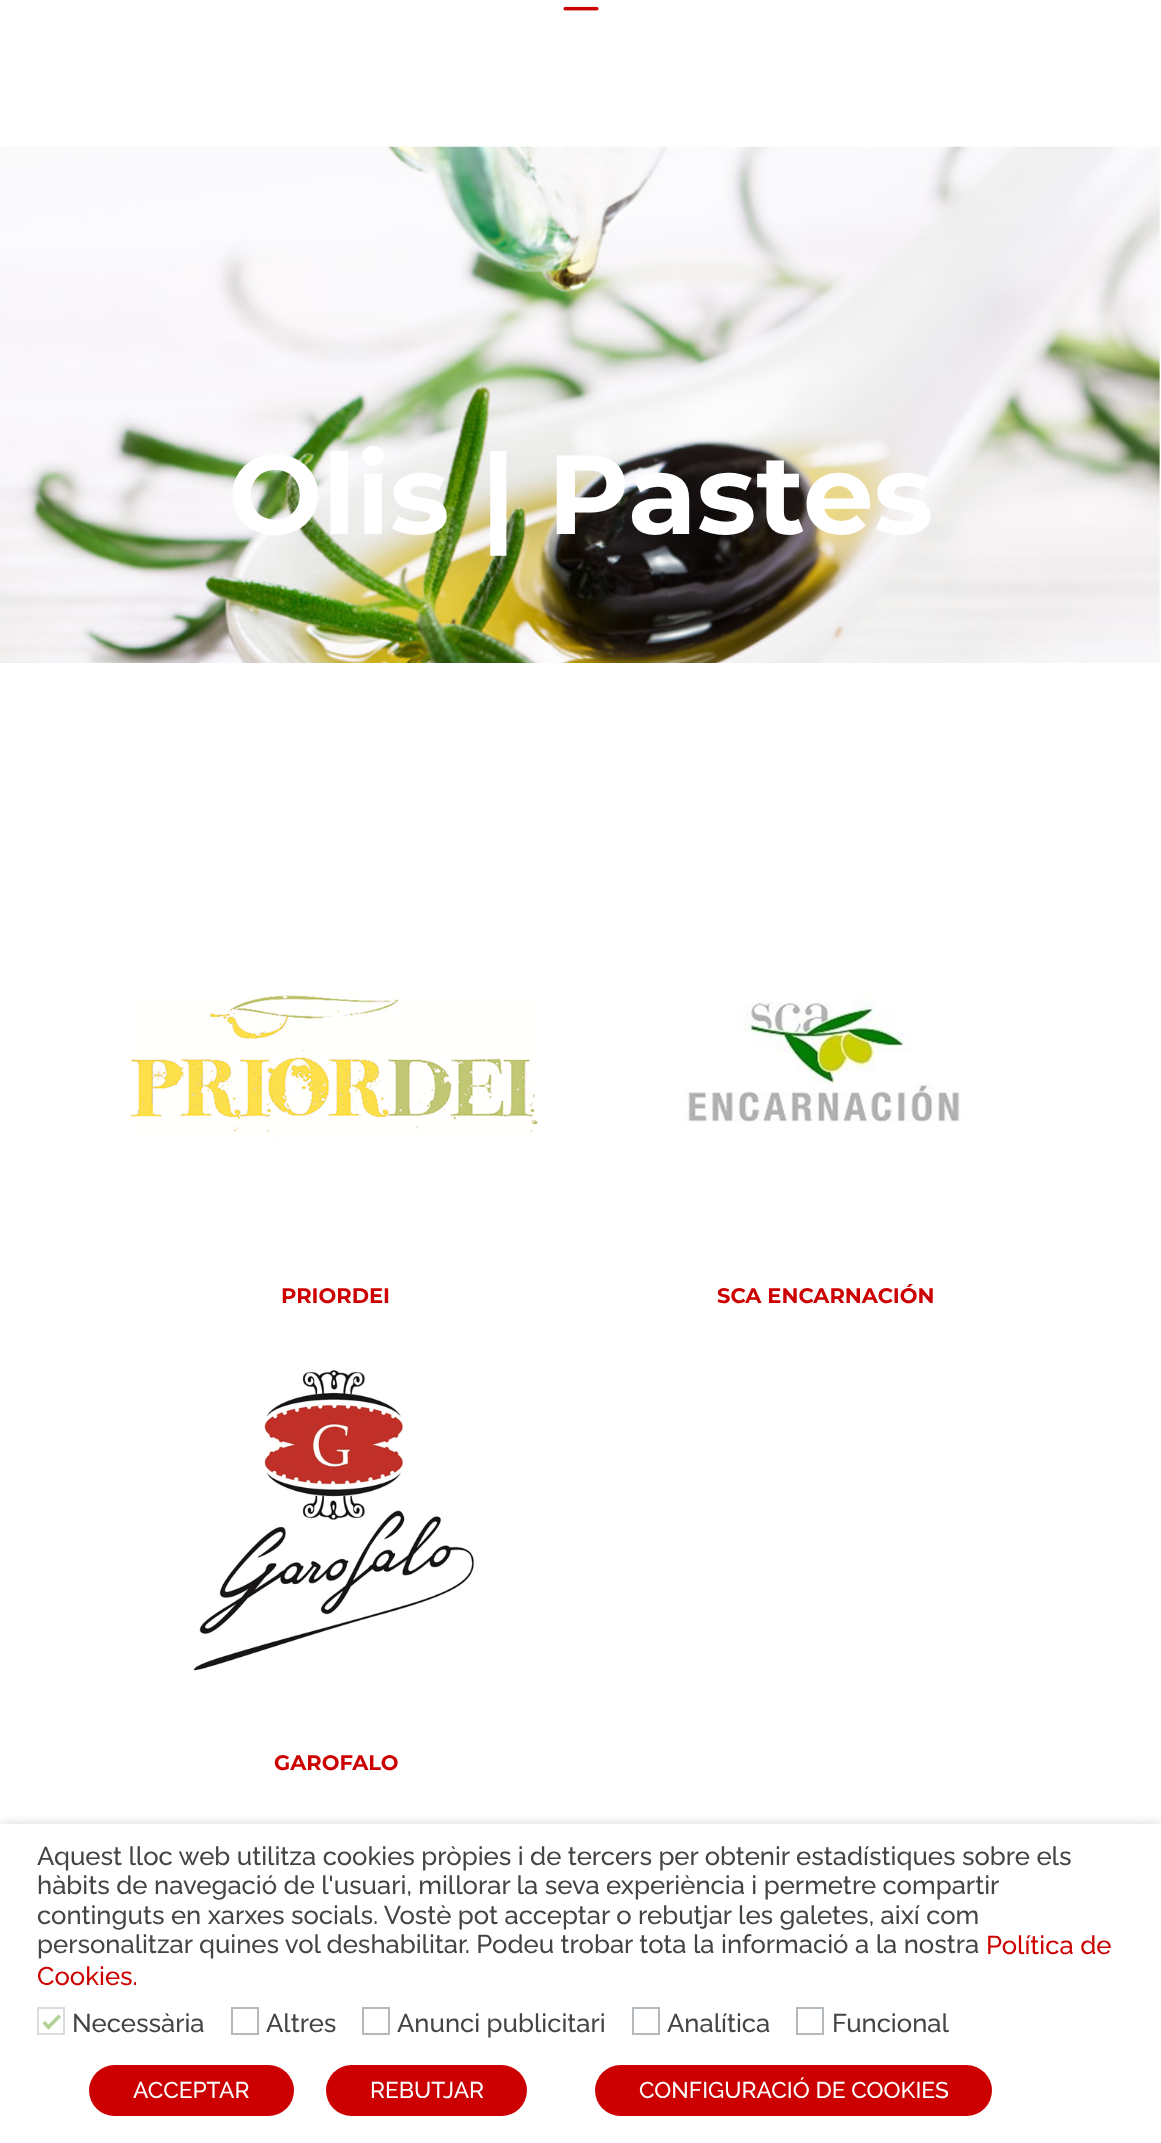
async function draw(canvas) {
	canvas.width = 1161;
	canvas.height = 2143;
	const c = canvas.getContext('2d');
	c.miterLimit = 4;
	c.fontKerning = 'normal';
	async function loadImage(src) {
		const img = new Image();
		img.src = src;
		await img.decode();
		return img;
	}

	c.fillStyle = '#fff';
	c.fillRect(0, 0, 1161, 2143);
	c.drawImage(await loadImage('img1.png'), 563, 6, 36, 5);
	c.drawImage(await loadImage('img2.png'), 0, 146, 1160, 517);
	c.font = 'bold 112px Montserrat';
	c.fillText('Olis | Pastes', 228, 534);
	c.drawImage(await loadImage('img3.png'), 130, 993, 408, 146);
	c.font = 'bold 21px Montserrat';
	c.fillStyle = '#c00';
	c.fillText('PRIORDEI', 281, 1303);
	c.drawImage(await loadImage('img4.png'), 684, 992, 278, 130);
	c.fillText('SCA ENCARNACIÓN', 717, 1303);
	c.drawImage(await loadImage('img5.png'), 193, 1370, 282, 301);
	c.fillText('GAROFALO', 274, 1770);
	c.save();
	c.beginPath();
	c.rect(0, 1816, 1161, 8);
	c.clip();
	c.fillStyle = '#00000080';
	c.filter = 'blur(9px)';
	c.beginPath();
	c.rect(0, 1832, 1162, 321);
	c.fill();
	c.filter = 'none';
	c.restore();
	c.font = '500 25.65px Raleway';
	c.fillStyle = '#444';
	for (const [text, x, y] of [
		['Aquest lloc web utilitza cookies pròpies i de tercers per obtenir estadístiques sobre els', 37, 1865],
		['hàbits de navegació de l\'usuari, millorar la seva experiència i permetre compartir', 37, 1894],
		['continguts en xarxes socials. Vostè pot acceptar o rebutjar les galetes, així com', 37, 1924],
		['personalitzar quines vol deshabilitar. Podeu trobar tota la informació a la nostra', 37, 1953],
	]) {
		c.fillText(text, x, y);
	}
	c.fillStyle = '#c00';
	c.fillText('Política de', 986, 1954);
	c.fillText('Cookies.', 37, 1985);
	c.strokeStyle = '#dadcdf';
	c.lineWidth = 2;
	c.strokeRect(38, 2008, 26, 26);
	c.fillStyle = '#b0d194';
	c.beginPath();
	c.moveTo(58.5, 2014.5);
	c.lineTo(61, 2017);
	c.lineTo(48.5, 2029.5);
	c.lineTo(46, 2027);
	c.closePath();
	c.fill();
	c.beginPath();
	c.moveTo(45, 2021);
	c.lineTo(51, 2027);
	c.lineTo(48.5, 2029.5);
	c.lineTo(42.5, 2023.5);
	c.closePath();
	c.fill();
	c.fillStyle = '#444';
	c.fillText('Necessària', 72, 2032);
	c.strokeStyle = '#b4b9be';
	c.strokeRect(232, 2008, 26, 26);
	c.fillText('Altres', 266, 2032);
	c.strokeRect(363, 2008, 26, 26);
	c.fillText('Anunci publicitari', 397, 2032);
	c.strokeRect(633, 2008, 26, 26);
	c.fillText('Analítica', 667, 2032);
	c.strokeRect(797, 2008, 26, 26);
	c.fillText('Funcional', 832, 2032);
	c.fillStyle = '#c00';
	c.beginPath();
	c.roundRect(89, 2065, 205, 51, 25.5);
	c.fill();
	c.font = '500 22.75px Raleway';
	c.fillStyle = '#fff';
	c.fillText('ACCEPTAR', 133, 2098);
	c.fillStyle = '#c00';
	c.beginPath();
	c.roundRect(326, 2065, 201, 51, 25.5);
	c.fill();
	c.fillStyle = '#fff';
	c.fillText('REBUTJAR', 370, 2098);
	c.fillStyle = '#c00';
	c.beginPath();
	c.roundRect(595, 2065, 397, 51, 25.5);
	c.fill();
	c.fillStyle = '#fff';
	c.fillText('CONFIGURACIÓ DE COOKIES', 639, 2098);
}

draw(document.querySelector('canvas'));
